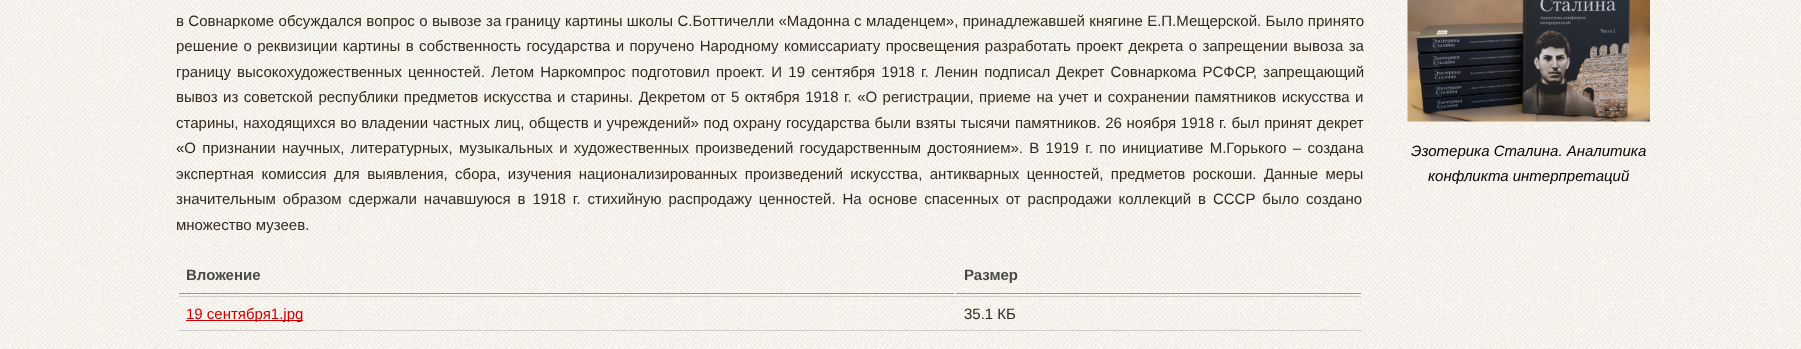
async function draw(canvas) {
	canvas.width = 1801;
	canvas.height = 349;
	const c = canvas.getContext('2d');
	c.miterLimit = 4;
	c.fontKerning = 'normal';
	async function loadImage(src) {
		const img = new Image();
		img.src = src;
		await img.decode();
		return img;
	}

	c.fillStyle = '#fff';
	c.fillRect(0, 0, 1801, 349);
	c.drawImage(await loadImage('img1.png'), 0, 0, 1801, 349);
	c.wordSpacing = '0.2px';
	c.font = '15px Liberation Sans';
	c.fillStyle = '#32291e';
	c.fillText('в Совнаркоме обсуждался вопрос о вывозе за границу картины школы С.Боттичелли «Мадонна с младенцем», принадлежавшей княгине Е.П.Мещерской. Было принято', 176, 26);
	c.wordSpacing = '1.2px';
	c.fillText('решение о реквизиции картины в собственность государства и поручено Народному комиссариату просвещения разработать проект декрета о запрещении вывоза за', 176, 51);
	c.wordSpacing = '2px';
	c.fillText('границу высокохудожественных ценностей. Летом Наркомпрос подготовил проект. И 19 сентября 1918 г. Ленин подписал Декрет Совнаркома РСФСР, запрещающий', 176, 77);
	c.wordSpacing = '1.25px';
	c.fillText('вывоз из советской республики предметов искусства и старины. Декретом от 5 октября 1918 г. «О регистрации, приеме на учет и сохранении памятников искусства и', 176, 102);
	c.wordSpacing = '0.5px';
	c.fillText('старины, находящихся во владении частных лиц, обществ и учреждений» под охрану государства были взяты тысячи памятников. 26 ноября 1918 г. был принят декрет', 176, 128);
	c.wordSpacing = '2.1px';
	c.fillText('«О признании научных, литературных, музыкальных и художественных произведений государственным достоянием». В 1919 г. по инициативе М.Горького – создана', 176, 153);
	c.wordSpacing = '3.25px';
	c.fillText('экспертная комиссия для выявления, сбора, изучения национализированных произведений искусства, антикварных ценностей, предметов роскоши. Данные меры', 176, 179);
	c.wordSpacing = '2.75px';
	c.fillText('значительным образом сдержали начавшуюся в 1918 г. стихийную распродажу ценностей. На основе спасенных от распродажи коллекций в СССР было создано', 176, 204);
	c.wordSpacing = '0px';
	c.fillText('множество музеев.', 176, 230);
	c.fillStyle = '#999';
	c.fillRect(179, 293, 775, 1);
	c.font = 'bold 15px Liberation Sans';
	c.fillStyle = '#494949';
	c.fillText('Вложение', 186, 280);
	c.fillStyle = '#999';
	c.fillRect(956, 293, 405, 1);
	c.fillStyle = '#494949';
	c.fillText('Размер', 964, 280);
	for (const [x, y, w, h, color] of [
		[179, 296, 1182, 1, '#ccc'],
		[179, 330, 1182, 1, '#ccc'],
		[186, 320, 117, 1, '#c00'],
	]) {
		c.fillStyle = color;
		c.fillRect(x, y, w, h);
	}
	c.font = '15px Liberation Sans';
	c.fillText('19 сентября1.jpg', 186, 319);
	c.fillStyle = '#32291e';
	c.fillText('35.1 КБ', 964, 319);
	c.drawImage(await loadImage('img2.png'), 1407, 0, 243, 122);
	c.font = 'italic 15px Liberation Sans';
	c.fillStyle = '#000';
	c.fillText('Эзотерика Сталина. Аналитика', 1411, 156);
	c.fillText('конфликта интерпретаций', 1428, 181);
}

draw(document.querySelector('canvas'));
